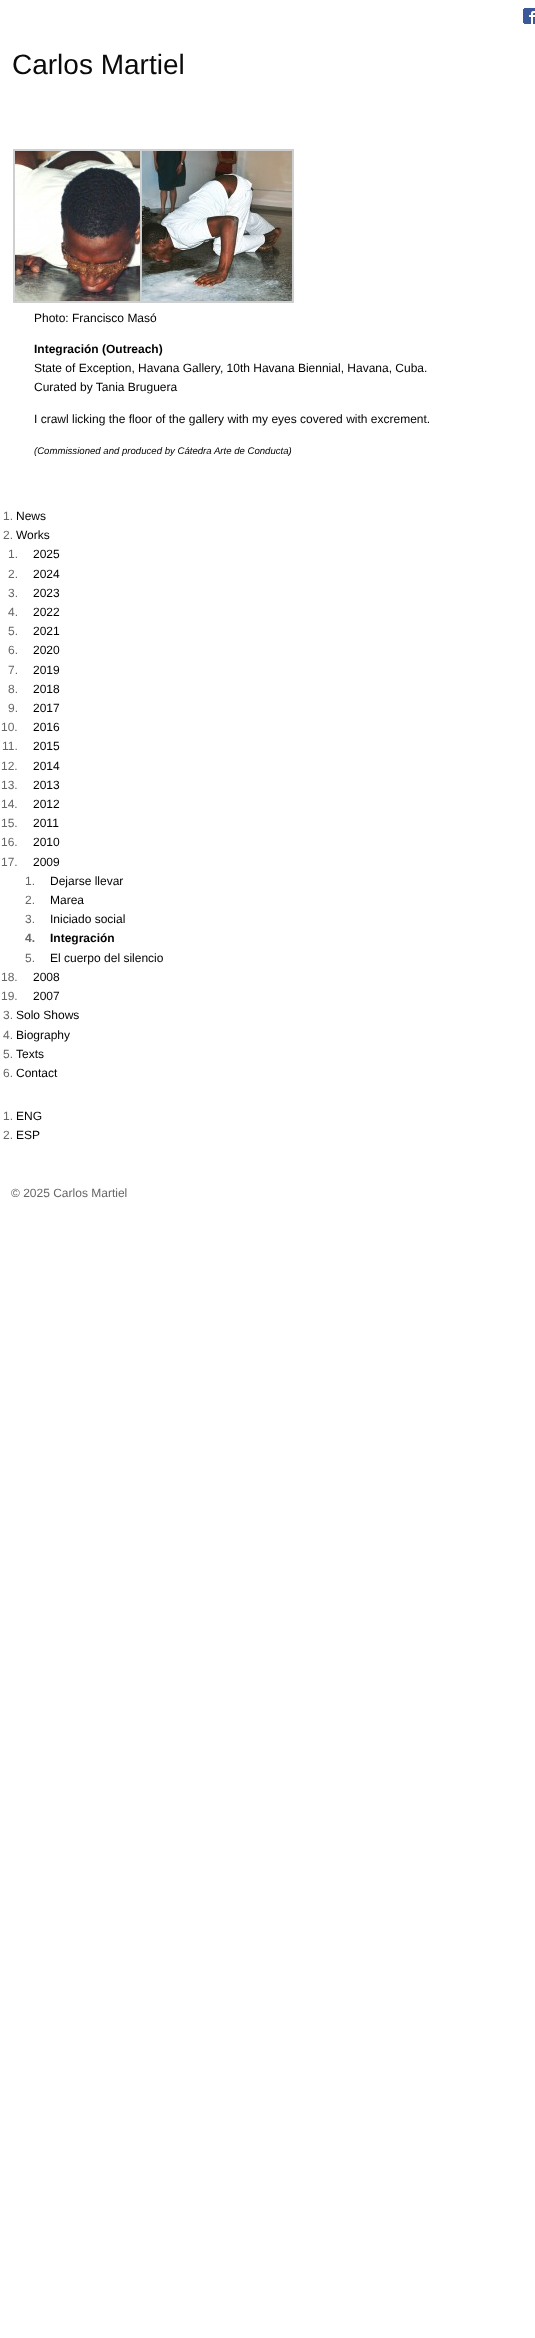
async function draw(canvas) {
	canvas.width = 535;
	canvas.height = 2338;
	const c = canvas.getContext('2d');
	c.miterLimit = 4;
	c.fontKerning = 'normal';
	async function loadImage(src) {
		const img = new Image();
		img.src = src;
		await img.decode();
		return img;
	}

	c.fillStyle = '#fff';
	c.fillRect(0, 0, 535, 2338);
	c.drawImage(await loadImage('img1.png'), 523, 8, 12, 16);
	c.font = '28px Liberation Sans';
	c.fillStyle = '#0a0a0a';
	c.fillText('Carlos Martiel', 12, 74);
	c.strokeStyle = '#cfcfcf';
	c.lineWidth = 2;
	c.strokeRect(14, 150, 152, 152);
	c.drawImage(await loadImage('img2.png'), 15, 151, 125, 150);
	c.strokeRect(141, 150, 152, 152);
	c.drawImage(await loadImage('img3.png'), 142, 151, 150, 150);
	c.font = '12px Liberation Sans';
	c.fillStyle = '#000';
	c.fillText('Photo: Francisco Masó', 34, 322);
	c.font = 'bold 12px Liberation Sans';
	c.fillText('Integración (Outreach)', 34, 353);
	c.font = '12px Liberation Sans';
	for (const [text, x, y] of [
		['State of Exception, Havana Gallery, 10th Havana Biennial, Havana, Cuba.', 34, 372],
		['Curated by Tania Bruguera', 34, 391],
		['I crawl licking the floor of the gallery with my eyes covered with excrement.', 34, 423],
	]) {
		c.fillText(text, x, y);
	}
	c.font = 'italic 9.6px Liberation Sans';
	c.fillText('(Commissioned and produced by Cátedra Arte de Conducta)', 34, 454);
	c.font = '12px Liberation Sans';
	c.fillStyle = '#666';
	c.fillText('1.', 3, 520);
	c.fillStyle = '#000';
	c.fillText('News', 16, 520);
	c.fillStyle = '#666';
	c.fillText('2.', 3, 539);
	c.fillStyle = '#000';
	c.fillText('Works', 16, 539);
	c.fillStyle = '#666';
	c.fillText('1.', 8, 558);
	c.fillStyle = '#000';
	c.fillText('2025', 33, 558);
	c.fillStyle = '#666';
	c.fillText('2.', 8, 578);
	c.fillStyle = '#000';
	c.fillText('2024', 33, 578);
	c.fillStyle = '#666';
	c.fillText('3.', 8, 597);
	c.fillStyle = '#000';
	c.fillText('2023', 33, 597);
	c.fillStyle = '#666';
	c.fillText('4.', 8, 616);
	c.fillStyle = '#000';
	c.fillText('2022', 33, 616);
	c.fillStyle = '#666';
	c.fillText('5.', 8, 635);
	c.fillStyle = '#000';
	c.fillText('2021', 33, 635);
	c.fillStyle = '#666';
	c.fillText('6.', 8, 654);
	c.fillStyle = '#000';
	c.fillText('2020', 33, 654);
	c.fillStyle = '#666';
	c.fillText('7.', 8, 674);
	c.fillStyle = '#000';
	c.fillText('2019', 33, 674);
	c.fillStyle = '#666';
	c.fillText('8.', 8, 693);
	c.fillStyle = '#000';
	c.fillText('2018', 33, 693);
	c.fillStyle = '#666';
	c.fillText('9.', 8, 712);
	c.fillStyle = '#000';
	c.fillText('2017', 33, 712);
	c.fillStyle = '#666';
	c.fillText('10.', 1, 731);
	c.fillStyle = '#000';
	c.fillText('2016', 33, 731);
	c.fillStyle = '#666';
	c.fillText('11.', 2, 750);
	c.fillStyle = '#000';
	c.fillText('2015', 33, 750);
	c.fillStyle = '#666';
	c.fillText('12.', 1, 770);
	c.fillStyle = '#000';
	c.fillText('2014', 33, 770);
	c.fillStyle = '#666';
	c.fillText('13.', 1, 789);
	c.fillStyle = '#000';
	c.fillText('2013', 33, 789);
	c.fillStyle = '#666';
	c.fillText('14.', 1, 808);
	c.fillStyle = '#000';
	c.fillText('2012', 33, 808);
	c.fillStyle = '#666';
	c.fillText('15.', 1, 827);
	c.fillStyle = '#000';
	c.fillText('2011', 33, 827);
	c.fillStyle = '#666';
	c.fillText('16.', 1, 846);
	c.fillStyle = '#000';
	c.fillText('2010', 33, 846);
	c.fillStyle = '#666';
	c.fillText('17.', 1, 866);
	c.fillStyle = '#000';
	c.fillText('2009', 33, 866);
	c.fillStyle = '#666';
	c.fillText('1.', 25, 885);
	c.fillStyle = '#000';
	c.fillText('Dejarse llevar', 50, 885);
	c.fillStyle = '#666';
	c.fillText('2.', 25, 904);
	c.fillStyle = '#000';
	c.fillText('Marea', 50, 904);
	c.fillStyle = '#666';
	c.fillText('3.', 25, 923);
	c.fillStyle = '#000';
	c.fillText('Iniciado social', 50, 923);
	c.font = 'bold 12px Liberation Sans';
	c.fillStyle = '#666';
	c.fillText('4.', 25, 942);
	c.fillStyle = '#000';
	c.fillText('Integración', 50, 942);
	c.font = '12px Liberation Sans';
	c.fillStyle = '#666';
	c.fillText('5.', 25, 962);
	c.fillStyle = '#000';
	c.fillText('El cuerpo del silencio', 50, 962);
	c.fillStyle = '#666';
	c.fillText('18.', 1, 981);
	c.fillStyle = '#000';
	c.fillText('2008', 33, 981);
	c.fillStyle = '#666';
	c.fillText('19.', 1, 1000);
	c.fillStyle = '#000';
	c.fillText('2007', 33, 1000);
	c.fillStyle = '#666';
	c.fillText('3.', 3, 1019);
	c.fillStyle = '#000';
	c.fillText('Solo Shows', 16, 1019);
	c.fillStyle = '#666';
	c.fillText('4.', 3, 1039);
	c.fillStyle = '#000';
	c.fillText('Biography', 16, 1039);
	c.fillStyle = '#666';
	c.fillText('5.', 3, 1058);
	c.fillStyle = '#000';
	c.fillText('Texts', 16, 1058);
	c.fillStyle = '#666';
	c.fillText('6.', 3, 1077);
	c.fillStyle = '#000';
	c.fillText('Contact', 16, 1077);
	c.fillStyle = '#666';
	c.fillText('1.', 3, 1120);
	c.fillStyle = '#000';
	c.fillText('ENG', 16, 1120);
	c.fillStyle = '#666';
	c.fillText('2.', 3, 1139);
	c.fillStyle = '#000';
	c.fillText('ESP', 16, 1139);
	c.fillStyle = '#666';
	c.fillText('© 2025 Carlos Martiel', 11, 1197);
}

draw(document.querySelector('canvas'));
